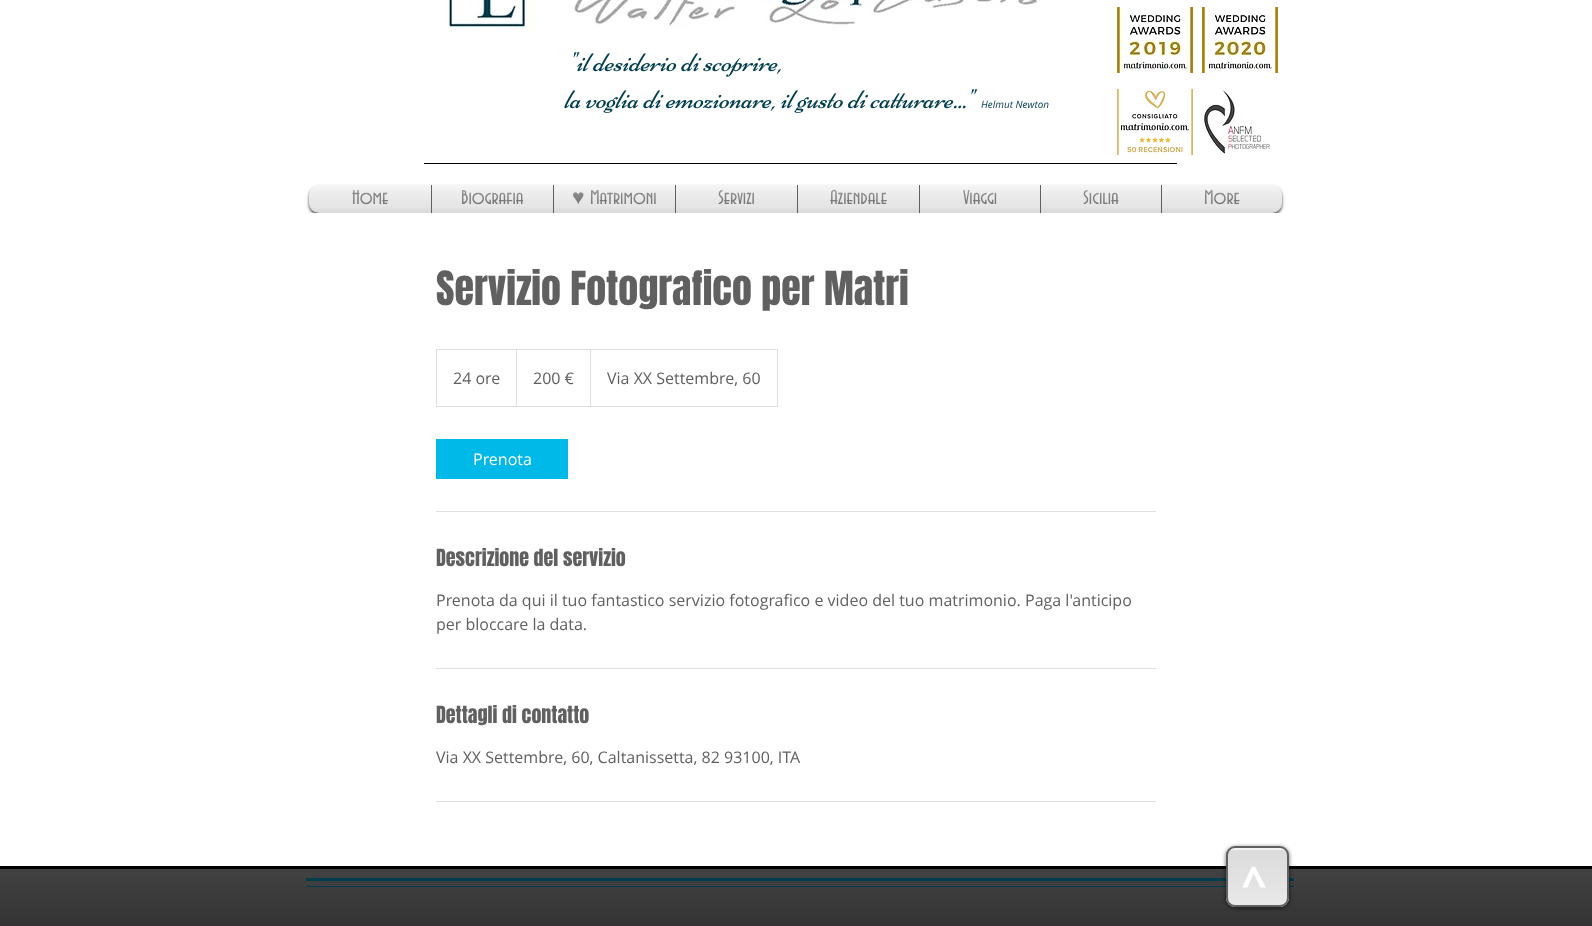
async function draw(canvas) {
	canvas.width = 1592;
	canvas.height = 926;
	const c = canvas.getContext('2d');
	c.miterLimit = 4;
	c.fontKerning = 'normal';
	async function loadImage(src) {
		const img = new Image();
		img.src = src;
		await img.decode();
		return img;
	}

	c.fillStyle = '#fff';
	c.fillRect(0, 0, 1592, 926);
	c.drawImage(await loadImage('img1.png'), 447, 0, 590, 31);
	c.drawImage(await loadImage('img2.png'), 1117, 7, 76, 66);
	c.drawImage(await loadImage('img3.png'), 1202, 7, 76, 66);
	c.drawImage(await loadImage('img4.png'), 573, 52, 208, 25);
	c.drawImage(await loadImage('img5.png'), 564, 89, 414, 24);
	c.font = 'italic 10px Open Sans';
	c.fillStyle = '#003d4d';
	c.fillText('Helmut Newton', 981, 108);
	c.drawImage(await loadImage('img6.png'), 1117, 89, 76, 66);
	c.drawImage(await loadImage('img7.png'), 1202, 89, 68, 66);
	c.fillStyle = '#000';
	c.fillRect(424, 163, 753, 1);
	c.fillStyle = '#000000b3';
	c.filter = 'blur(1.5px)';
	c.beginPath();
	c.roundRect(309, 187, 973, 28, 10);
	c.fill();
	c.filter = 'none';
	c.drawImage(await loadImage('img8.png'), 309, 185, 973, 28);
	c.fillStyle = '#fff';
	c.beginPath();
	c.roundRect(309, 185, 122, 28, [10, 0, 0, 10]);
	c.fill();
	c.font = '21px "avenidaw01"';
	c.fillStyle = '#606060';
	c.fillText('Home', 352, 204);
	c.drawImage(await loadImage('img9.png'), 352, 190, 36, 14);
	c.drawImage(await loadImage('img10.png'), 309, 185, 122, 28);
	c.fillStyle = '#fff';
	c.fillRect(432, 185, 121, 28);
	c.fillStyle = '#606060';
	c.fillRect(431, 185, 1, 28);
	c.fillText('Biografia', 461, 204);
	c.drawImage(await loadImage('img11.png'), 462, 190, 62, 15);
	c.drawImage(await loadImage('img12.png'), 432, 185, 121, 28);
	c.fillStyle = '#fff';
	c.fillRect(554, 185, 121, 28);
	c.fillStyle = '#606060';
	c.fillRect(553, 185, 1, 28);
	c.font = '21px Liberation Serif';
	c.fillText('♥', 572, 204);
	c.font = '21px "avenidaw01"';
	c.fillText('Matrimoni', 590, 204);
	c.drawImage(await loadImage('img13.png'), 573, 190, 83, 15);
	c.drawImage(await loadImage('img14.png'), 554, 185, 121, 28);
	c.fillStyle = '#fff';
	c.fillRect(676, 185, 121, 28);
	c.fillStyle = '#606060';
	c.fillRect(675, 185, 1, 28);
	c.fillText('Servizi', 718, 204);
	c.drawImage(await loadImage('img15.png'), 718, 190, 36, 14);
	c.drawImage(await loadImage('img16.png'), 676, 185, 121, 28);
	c.fillStyle = '#fff';
	c.fillRect(798, 185, 121, 28);
	c.fillStyle = '#606060';
	c.fillRect(797, 185, 1, 28);
	c.fillText('Aziendale', 830, 204);
	c.drawImage(await loadImage('img17.png'), 830, 189, 57, 15);
	c.drawImage(await loadImage('img18.png'), 798, 185, 121, 28);
	c.fillStyle = '#fff';
	c.fillRect(920, 185, 120, 28);
	c.fillStyle = '#606060';
	c.fillRect(919, 185, 1, 28);
	c.fillText('Viaggi', 963, 204);
	c.drawImage(await loadImage('img19.png'), 963, 190, 34, 14);
	c.drawImage(await loadImage('img20.png'), 920, 185, 120, 28);
	c.fillStyle = '#fff';
	c.fillRect(1041, 185, 120, 28);
	c.fillStyle = '#606060';
	c.fillRect(1040, 185, 1, 28);
	c.fillText('Sicilia', 1083, 204);
	c.drawImage(await loadImage('img21.png'), 1083, 190, 36, 14);
	c.drawImage(await loadImage('img22.png'), 1041, 185, 120, 28);
	c.fillStyle = '#fff';
	c.beginPath();
	c.roundRect(1161, 185, 121, 28, [0, 10, 10, 0]);
	c.fill();
	c.fillStyle = '#606060';
	c.fillRect(1161, 185, 1, 28);
	c.fillText('More', 1204, 204);
	c.drawImage(await loadImage('img23.png'), 1205, 190, 35, 15);
	c.drawImage(await loadImage('img24.png'), 1162, 185, 120, 28);
	c.fillStyle = '#fff';
	c.fillRect(309, 213, 973, 5);
	c.font = '40px Anton';
	c.fillStyle = '#606060';
	c.fillText('Servizio Fotografico per Matri', 436, 305);
	c.strokeStyle = '#dfdfdf';
	c.strokeRect(436.5, 349.5, 341, 57);
	c.font = '16px Open Sans';
	c.fillText('24 ore', 453, 384);
	c.fillStyle = '#dfdfdf';
	c.beginPath();
	c.moveTo(516, 406);
	c.lineTo(516, 349);
	c.lineTo(517, 350);
	c.lineTo(517, 406);
	c.closePath();
	c.fill();
	c.fillStyle = '#606060';
	c.fillText('200 €', 533, 384);
	c.fillStyle = '#dfdfdf';
	c.beginPath();
	c.moveTo(590, 406);
	c.lineTo(590, 349);
	c.lineTo(591, 350);
	c.lineTo(591, 406);
	c.closePath();
	c.fill();
	c.fillStyle = '#606060';
	c.fillText('Via XX Settembre, 60', 607, 384);
	c.fillStyle = '#00b9e8';
	c.fillRect(436, 439, 132, 40);
	c.fillStyle = '#fff';
	c.fillText('Prenota', 473, 465);
	c.fillStyle = '#dfdfdf';
	c.fillRect(436, 511, 720, 1);
	c.font = '20px Anton';
	c.fillStyle = '#606060';
	c.fillText('Descrizione del servizio', 436, 566);
	c.font = '16px Open Sans';
	c.fillText('Prenota da qui il tuo fantastico servizio fotografico e video del tuo matrimonio. Paga l\'anticipo', 436, 606);
	c.fillText('per bloccare la data.', 436, 630);
	c.fillStyle = '#dfdfdf';
	c.fillRect(436, 668, 720, 1);
	c.font = '20px Anton';
	c.fillStyle = '#606060';
	c.fillText('Dettagli di contatto', 436, 723);
	c.font = '16px Open Sans';
	c.fillText('Via XX Settembre, 60, Caltanissetta, 82 93100, ITA', 436, 763);
	c.fillStyle = '#dfdfdf';
	c.fillRect(436, 801, 720, 1);
	c.fillStyle = '#000';
	c.fillRect(0, 866, 1592, 60);
	c.drawImage(await loadImage('img25.png'), 0, 869, 1592, 57);
	c.fillStyle = '#003d4d';
	c.fillRect(306, 878, 988, 3);
	c.fillRect(306, 886, 988, 1);
	c.fillStyle = '#00000099';
	c.filter = 'blur(2px)';
	c.beginPath();
	c.roundRect(1226, 847, 63, 61, 9);
	c.fill();
	c.filter = 'none';
	c.fillStyle = '#f2f2f2';
	c.beginPath();
	c.roundRect(1226, 846, 63, 61, 9);
	c.fill();
	c.drawImage(await loadImage('img26.png'), 1226, 850, 63, 57);
	c.beginPath();
	c.roundRect(1227, 847, 61, 59, 8);
	c.strokeStyle = '#606060';
	c.lineWidth = 2;
	c.stroke();
	c.font = 'bold 45px Open Sans';
	c.fillStyle = '#fff';
	c.fillText('^', 1242, 899);
}

draw(document.querySelector('canvas'));
